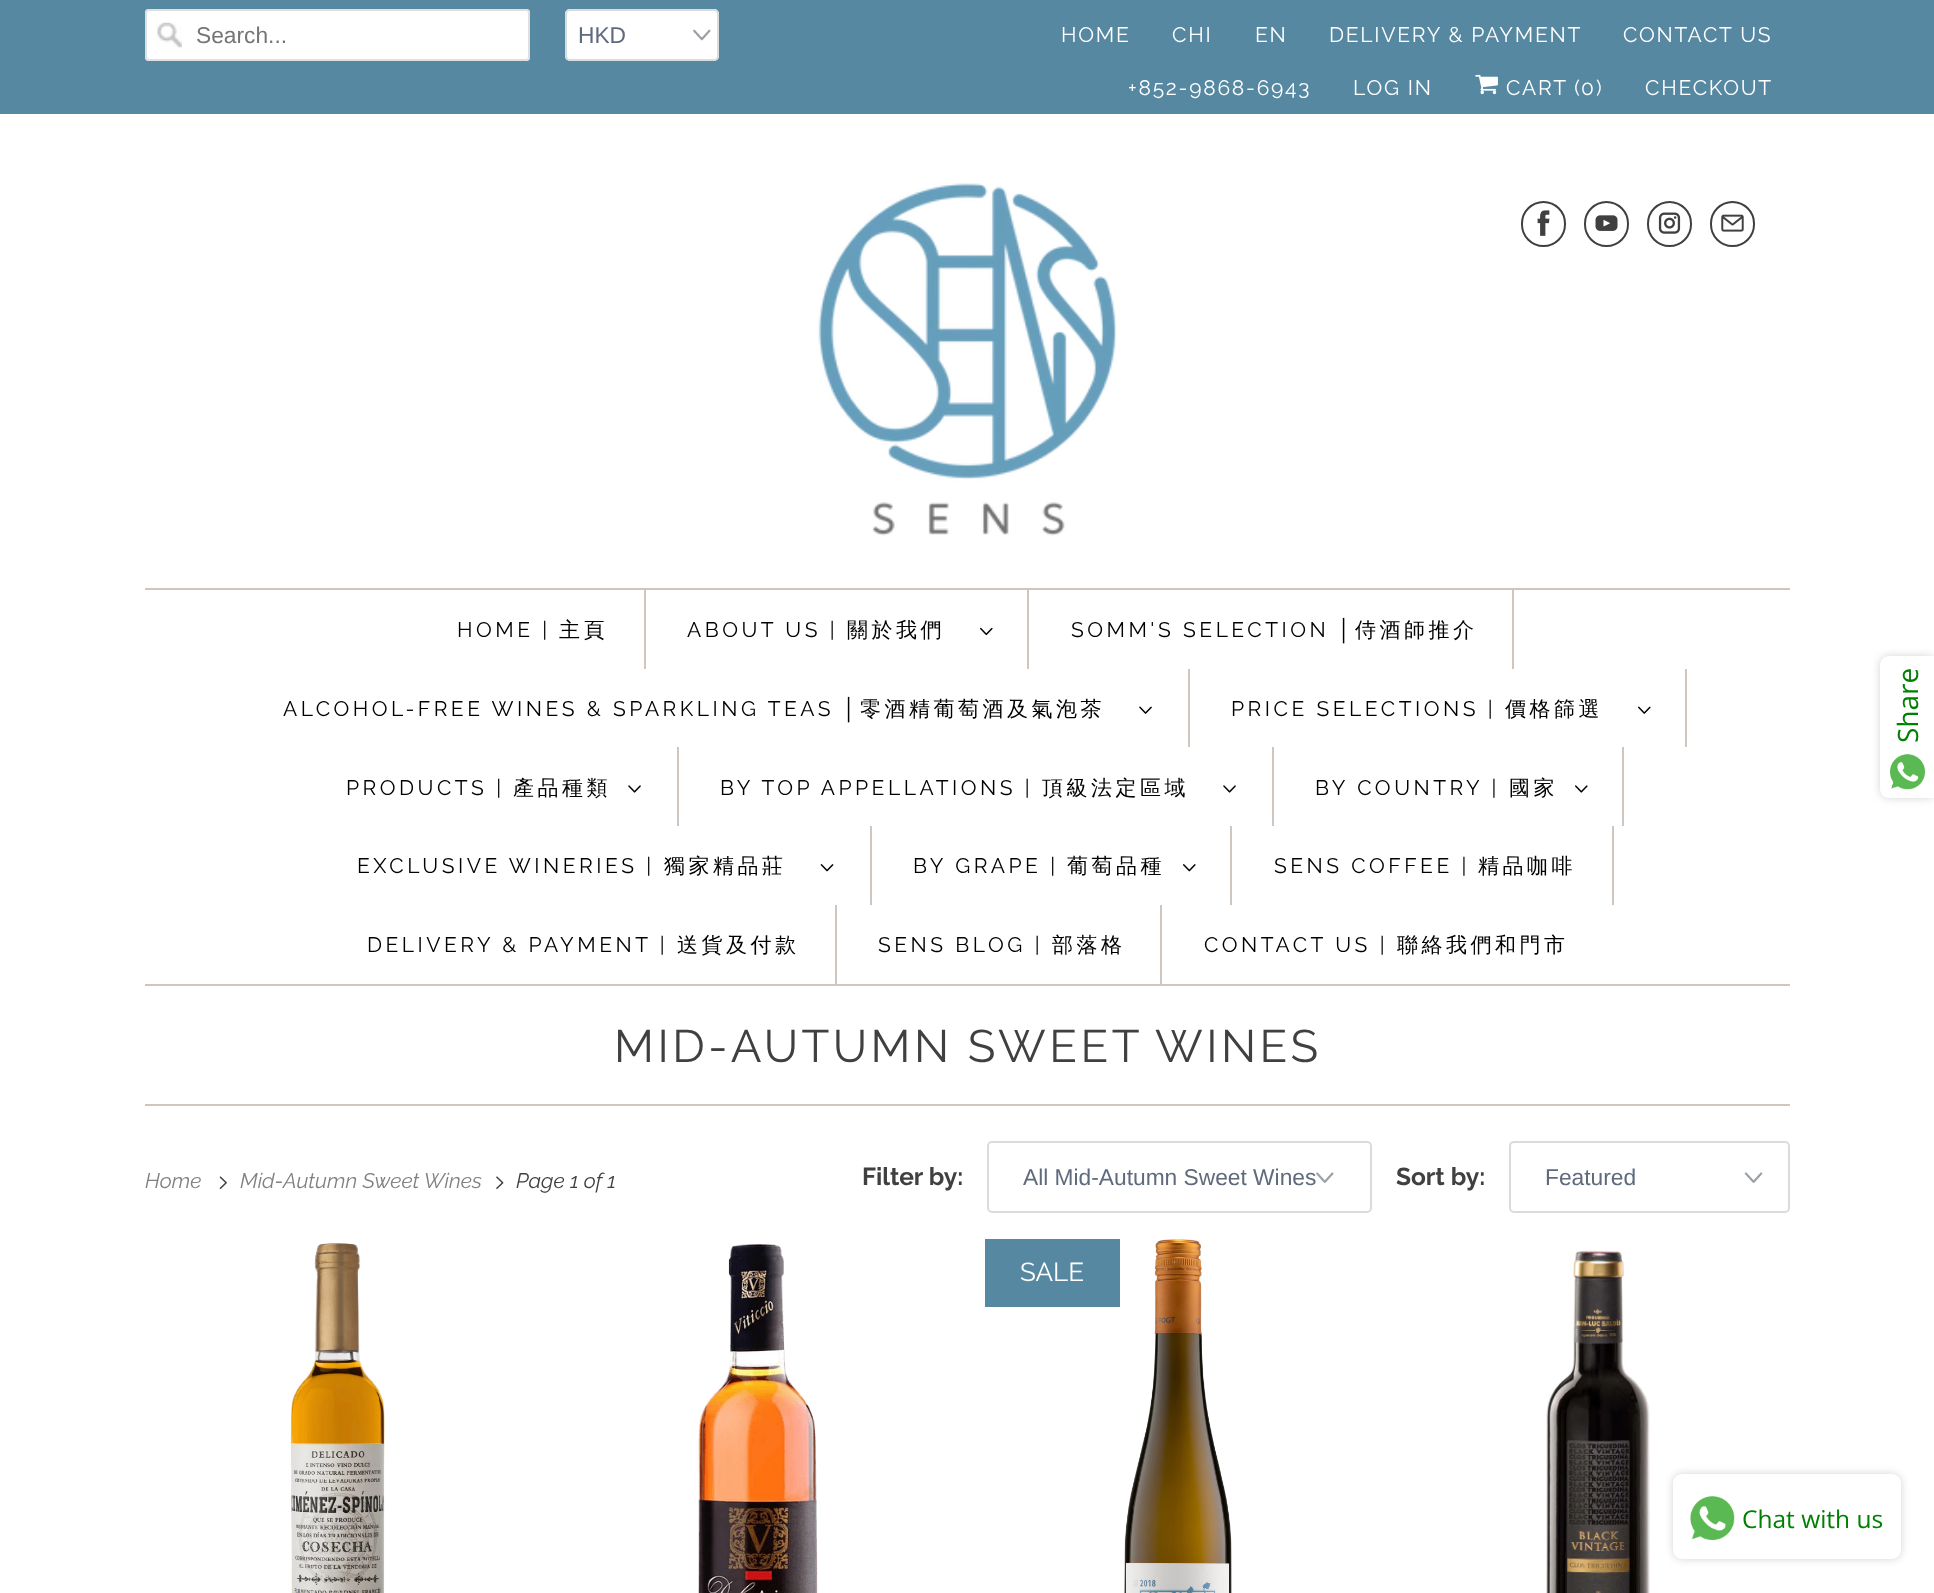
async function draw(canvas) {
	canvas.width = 1934;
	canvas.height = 1593;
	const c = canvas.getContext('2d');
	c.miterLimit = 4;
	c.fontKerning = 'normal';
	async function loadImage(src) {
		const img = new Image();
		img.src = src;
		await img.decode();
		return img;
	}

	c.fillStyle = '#fff';
	c.fillRect(0, 0, 1934, 1593);
	c.fillStyle = '#5788a1';
	c.fillRect(0, 0, 1934, 114);
	c.fillStyle = '#fff';
	c.beginPath();
	c.roundRect(145, 9, 385, 52, 4);
	c.fill();
	c.drawImage(await loadImage('img1.png'), 157, 22, 25, 26);
	c.beginPath();
	c.roundRect(146, 10, 383, 50, 3);
	c.strokeStyle = '#dfdfdf';
	c.lineWidth = 2;
	c.stroke();
	c.font = '22.75px Liberation Sans';
	c.fillStyle = '#757575';
	c.fillText('Search...', 196, 43);
	c.fillStyle = '#fff';
	c.beginPath();
	c.roundRect(565, 9, 154, 52, 5);
	c.fill();
	c.drawImage(await loadImage('img2.png'), 693, 29, 18, 12);
	c.beginPath();
	c.roundRect(566, 10, 152, 50, 4);
	c.strokeStyle = '#d9dbdc';
	c.stroke();
	c.fillStyle = '#5f6a7d';
	c.fillText('HKD', 578, 43);
	c.letterSpacing = '1.75px';
	c.font = '21px Raleway';
	c.fillStyle = '#fff';
	for (const [text, x, y] of [
		['HOME', 1061, 42],
		['CHI', 1172, 42],
		['EN', 1255, 42],
		['DELIVERY & PAYMENT', 1329, 42],
		['CONTACT US', 1623, 42],
		['+852-9868-6943', 1128, 95],
		['LOG IN', 1353, 95],
	]) {
		c.fillText(text, x, y);
	}
	c.drawImage(await loadImage('img3.png'), 1475, 74, 23, 21);
	for (const [text, x, y] of [
		['CART (', 1506, 95],
		['0', 1581, 95],
		[')', 1596, 95],
		['CHECKOUT', 1645, 95],
	]) {
		c.fillText(text, x, y);
	}
	c.drawImage(await loadImage('img4.png'), 818, 183, 299, 353);
	c.beginPath();
	c.roundRect(1522, 202, 43, 44, 21.5);
	c.strokeStyle = '#404040';
	c.stroke();
	c.drawImage(await loadImage('img5.png'), 1537, 210, 13, 26);
	c.beginPath();
	c.roundRect(1585, 202, 43, 44, 21.5);
	c.stroke();
	c.drawImage(await loadImage('img6.png'), 1595, 215, 23, 16);
	c.beginPath();
	c.roundRect(1648, 202, 43, 44, 21.5);
	c.stroke();
	c.drawImage(await loadImage('img7.png'), 1658, 212, 23, 22);
	c.beginPath();
	c.roundRect(1711, 202, 43, 44, 21.5);
	c.stroke();
	c.drawImage(await loadImage('img8.png'), 1721, 214, 23, 18);
	for (const [x, y, w, h, color] of [
		[145, 588, 1645, 2, '#cec6bf'],
		[145, 984, 1645, 2, '#cec6bf'],
		[644, 590, 2, 79, '#cec6bf'],
	]) {
		c.fillStyle = color;
		c.fillRect(x, y, w, h);
	}
	c.letterSpacing = '3.5px';
	c.fillStyle = '#000';
	c.fillText('HOME |', 457, 637);
	c.font = '500 21px WenQuanYi Zen Hei';
	c.fillText('主頁', 559, 637);
	c.fillStyle = '#cec6bf';
	c.fillRect(1027, 590, 2, 79);
	c.font = '21px Raleway';
	c.fillStyle = '#000';
	c.fillText('ABOUT US |', 687, 637);
	c.font = '500 21px WenQuanYi Zen Hei';
	c.fillText('關於我們', 847, 637);
	c.drawImage(await loadImage('img9.png'), 980, 627, 13, 9);
	c.fillStyle = '#cec6bf';
	c.fillRect(1512, 590, 2, 79);
	c.font = '21px Raleway';
	c.fillStyle = '#000';
	c.fillText('SOMM\'S SELECTION', 1071, 637);
	c.font = '21px Liberation Sans';
	c.fillText('│', 1338, 637);
	c.font = '500 21px WenQuanYi Zen Hei';
	c.fillText('侍酒師推介', 1355, 637);
	c.fillStyle = '#cec6bf';
	c.fillRect(1188, 669, 2, 78);
	c.font = '21px Raleway';
	c.fillStyle = '#000';
	c.fillText('ALCOHOL-FREE WINES & SPARKLING TEAS', 283, 716);
	c.font = '21px Liberation Sans';
	c.fillText('│', 843, 716);
	c.font = '500 21px WenQuanYi Zen Hei';
	c.fillText('零酒精葡萄酒及氣泡茶', 860, 716);
	c.drawImage(await loadImage('img10.png'), 1139, 706, 13, 8);
	c.fillStyle = '#cec6bf';
	c.fillRect(1685, 669, 2, 78);
	c.font = '21px Raleway';
	c.fillStyle = '#000';
	c.fillText('PRICE SELECTIONS |', 1231, 716);
	c.font = '500 21px WenQuanYi Zen Hei';
	c.fillText('價格篩選', 1505, 716);
	c.drawImage(await loadImage('img11.png'), 1638, 706, 13, 8);
	c.fillStyle = '#cec6bf';
	c.fillRect(677, 747, 2, 79);
	c.font = '21px Raleway';
	c.fillStyle = '#000';
	c.fillText('PRODUCTS |', 346, 795);
	c.font = '500 21px WenQuanYi Zen Hei';
	c.fillText('產品種類', 513, 795);
	c.drawImage(await loadImage('img12.png'), 628, 785, 13, 8);
	c.fillStyle = '#cec6bf';
	c.fillRect(1272, 747, 2, 79);
	c.font = '21px Raleway';
	c.fillStyle = '#000';
	c.fillText('BY TOP APPELLATIONS |', 720, 795);
	c.font = '500 21px WenQuanYi Zen Hei';
	c.fillText('頂級法定區域', 1042, 795);
	c.drawImage(await loadImage('img12.png'), 1223, 785, 13, 8);
	c.fillStyle = '#cec6bf';
	c.fillRect(1622, 747, 2, 79);
	c.font = '21px Raleway';
	c.fillStyle = '#000';
	c.fillText('BY COUNTRY |', 1315, 795);
	c.font = '500 21px WenQuanYi Zen Hei';
	c.fillText('國家', 1509, 795);
	c.drawImage(await loadImage('img13.png'), 1575, 785, 13, 8);
	c.fillStyle = '#cec6bf';
	c.fillRect(870, 826, 2, 79);
	c.font = '21px Raleway';
	c.fillStyle = '#000';
	c.fillText('EXCLUSIVE WINERIES |', 357, 873);
	c.font = '500 21px WenQuanYi Zen Hei';
	c.fillText('獨家精品莊', 664, 873);
	c.drawImage(await loadImage('img14.png'), 820, 864, 14, 8);
	c.fillStyle = '#cec6bf';
	c.fillRect(1230, 826, 2, 79);
	c.font = '21px Raleway';
	c.fillStyle = '#000';
	c.fillText('BY GRAPE |', 913, 873);
	c.font = '500 21px WenQuanYi Zen Hei';
	c.fillText('葡萄品種', 1067, 873);
	c.drawImage(await loadImage('img15.png'), 1183, 864, 13, 8);
	c.fillStyle = '#cec6bf';
	c.fillRect(1612, 826, 2, 79);
	c.font = '21px Raleway';
	c.fillStyle = '#000';
	c.fillText('SENS COFFEE |', 1274, 873);
	c.font = '500 21px WenQuanYi Zen Hei';
	c.fillText('精品咖啡', 1478, 873);
	c.fillStyle = '#cec6bf';
	c.fillRect(835, 905, 2, 79);
	c.font = '21px Raleway';
	c.fillStyle = '#000';
	c.fillText('DELIVERY & PAYMENT |', 367, 952);
	c.font = '500 21px WenQuanYi Zen Hei';
	c.fillText('送貨及付款', 677, 952);
	c.fillStyle = '#cec6bf';
	c.fillRect(1160, 905, 2, 79);
	c.font = '21px Raleway';
	c.fillStyle = '#000';
	c.fillText('SENS BLOG |', 878, 952);
	c.font = '500 21px WenQuanYi Zen Hei';
	c.fillText('部落格', 1052, 952);
	c.font = '21px Raleway';
	c.fillText('CONTACT US |', 1204, 952);
	c.font = '500 21px WenQuanYi Zen Hei';
	c.fillText('聯絡我們和門市', 1397, 952);
	c.fillStyle = '#d3d3d3';
	c.filter = 'blur(4.5px)';
	c.beginPath();
	c.roundRect(1880, 656, 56, 142, 9);
	c.fill();
	c.filter = 'none';
	c.fillStyle = '#fff';
	c.beginPath();
	c.moveTo(1889, 656);
	c.lineTo(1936, 656);
	c.lineTo(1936, 798);
	c.lineTo(1889, 798);
	c.bezierCurveTo(1884, 798, 1880, 794, 1880, 789);
	c.lineTo(1880, 665);
	c.bezierCurveTo(1880, 660, 1884, 656, 1889, 656);
	c.closePath();
	c.fill();
	c.letterSpacing = '0px';
	c.font = '28px Open Sans';
	c.fillStyle = '#008000';
	c.save();
	c.translate(1918, 743);
	c.rotate(-90 * Math.PI / 180);
	c.fillText('Share', 0, 0);
	c.restore();
	c.drawImage(await loadImage('img16.png'), 1890, 754, 35, 36);
	c.fillStyle = '#cec6bf';
	c.fillRect(145, 1104, 1645, 2);
	c.letterSpacing = '3.5px';
	c.font = '45.5px Raleway';
	c.fillStyle = '#404040';
	c.fillText('MID-AUTUMN SWEET WINES', 614, 1062);
	c.letterSpacing = '0px';
	c.font = 'italic 21px Raleway';
	c.fillStyle = '#808080';
	c.fillText('Home', 145, 1188);
	c.drawImage(await loadImage('img17.png'), 219, 1176, 8, 13);
	c.fillText('Mid-Autumn Sweet Wines', 240, 1188);
	c.drawImage(await loadImage('img18.png'), 496, 1176, 8, 13);
	c.fillStyle = '#404040';
	c.fillText('Page 1 of 1', 516, 1188);
	c.font = 'bold 24.5px Raleway';
	c.fillText('Filter by:', 862, 1185);
	c.drawImage(await loadImage('img19.png'), 1316, 1172, 18, 11);
	c.beginPath();
	c.roundRect(988, 1142, 383, 70, 4);
	c.strokeStyle = '#d9dbdc';
	c.stroke();
	c.font = '22.75px Liberation Sans';
	c.fillStyle = '#5f6a7d';
	c.fillText('All Mid-Autumn Sweet Wines', 1023, 1185);
	c.font = 'bold 24.5px Raleway';
	c.fillStyle = '#404040';
	c.fillText('Sort by:', 1396, 1185);
	c.drawImage(await loadImage('img20.png'), 1744, 1172, 19, 11);
	c.beginPath();
	c.roundRect(1510, 1142, 279, 70, 4);
	c.stroke();
	c.font = '22.75px Liberation Sans';
	c.fillStyle = '#5f6a7d';
	c.fillText('Featured', 1545, 1185);
	c.drawImage(await loadImage('img21.png'), 290, 1243, 95, 350);
	c.drawImage(await loadImage('img22.png'), 698, 1244, 120, 349);
	c.fillStyle = '#5788a1';
	c.fillRect(985, 1239, 135, 68);
	c.font = '26px Raleway';
	c.fillStyle = '#fff';
	c.fillText('SALE', 1020, 1281);
	c.drawImage(await loadImage('img23.png'), 1124, 1239, 108, 354);
	c.drawImage(await loadImage('img24.png'), 1546, 1250, 104, 343);
	c.fillStyle = '#d3d3d3';
	c.filter = 'blur(4.5px)';
	c.beginPath();
	c.roundRect(1673, 1474, 228, 85, 9);
	c.fill();
	c.filter = 'none';
	c.fillStyle = '#fff';
	c.beginPath();
	c.roundRect(1673, 1474, 228, 85, 9);
	c.fill();
	c.drawImage(await loadImage('img25.png'), 1690, 1496, 45, 44);
	c.font = '24.5px Open Sans';
	c.fillStyle = '#008000';
	c.fillText('Chat with us', 1742, 1528);
}

draw(document.querySelector('canvas'));
